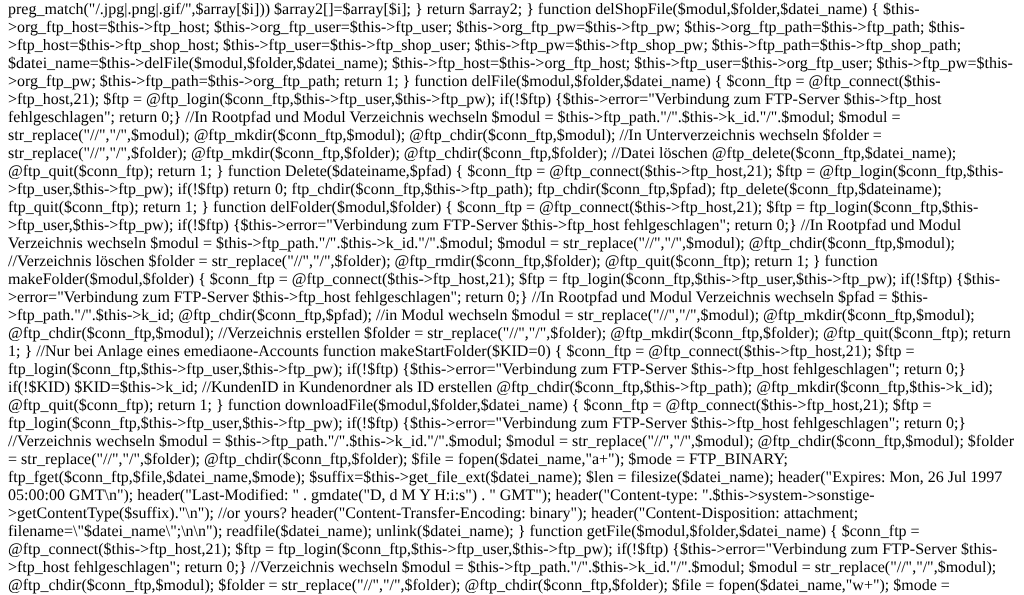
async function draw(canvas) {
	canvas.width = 1024;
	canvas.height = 595;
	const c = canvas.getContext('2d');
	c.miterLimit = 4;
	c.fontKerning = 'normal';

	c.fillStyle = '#fff';
	c.fillRect(0, 0, 1024, 595);
	c.font = '16px Liberation Serif';
	c.fillStyle = '#000';
	for (const [text, x, y] of [
		['preg_match("/.jpg|.png|.gif/",$array[$i])) $array2[]=$array[$i]; } return $array2; } function delShopFile($modul,$folder,$datei_name) { $this-', 8, 14],
		['>org_ftp_host=$this->ftp_host; $this->org_ftp_user=$this->ftp_user; $this->org_ftp_pw=$this->ftp_pw; $this->org_ftp_path=$this->ftp_path; $this-', 8, 32],
		['>ftp_host=$this->ftp_shop_host; $this->ftp_user=$this->ftp_shop_user; $this->ftp_pw=$this->ftp_shop_pw; $this->ftp_path=$this->ftp_shop_path;', 8, 50],
		['$datei_name=$this->delFile($modul,$folder,$datei_name); $this->ftp_host=$this->org_ftp_host; $this->ftp_user=$this->org_ftp_user; $this->ftp_pw=$this-', 8, 68],
		['>org_ftp_pw; $this->ftp_path=$this->org_ftp_path; return 1; } function delFile($modul,$folder,$datei_name) { $conn_ftp = @ftp_connect($this-', 8, 86],
		['>ftp_host,21); $ftp = @ftp_login($conn_ftp,$this->ftp_user,$this->ftp_pw); if(!$ftp) {$this->error="Verbindung zum FTP-Server $this->ftp_host', 8, 104],
		['fehlgeschlagen"; return 0;} //In Rootpfad und Modul Verzeichnis wechseln $modul = $this->ftp_path."/".$this->k_id."/".$modul; $modul =', 8, 122],
		['str_replace("//","/",$modul); @ftp_mkdir($conn_ftp,$modul); @ftp_chdir($conn_ftp,$modul); //In Unterverzeichnis wechseln $folder =', 8, 140],
		['str_replace("//","/",$folder); @ftp_mkdir($conn_ftp,$folder); @ftp_chdir($conn_ftp,$folder); //Datei löschen @ftp_delete($conn_ftp,$datei_name);', 8, 158],
		['@ftp_quit($conn_ftp); return 1; } function Delete($dateiname,$pfad) { $conn_ftp = @ftp_connect($this->ftp_host,21); $ftp = @ftp_login($conn_ftp,$this-', 8, 176],
		['>ftp_user,$this->ftp_pw); if(!$ftp) return 0; ftp_chdir($conn_ftp,$this->ftp_path); ftp_chdir($conn_ftp,$pfad); ftp_delete($conn_ftp,$dateiname);', 8, 194],
		['ftp_quit($conn_ftp); return 1; } function delFolder($modul,$folder) { $conn_ftp = @ftp_connect($this->ftp_host,21); $ftp = ftp_login($conn_ftp,$this-', 8, 212],
		['>ftp_user,$this->ftp_pw); if(!$ftp) {$this->error="Verbindung zum FTP-Server $this->ftp_host fehlgeschlagen"; return 0;} //In Rootpfad und Modul', 8, 230],
		['Verzeichnis wechseln $modul = $this->ftp_path."/".$this->k_id."/".$modul; $modul = str_replace("//","/",$modul); @ftp_chdir($conn_ftp,$modul);', 8, 248],
		['//Verzeichnis löschen $folder = str_replace("//","/",$folder); @ftp_rmdir($conn_ftp,$folder); @ftp_quit($conn_ftp); return 1; } function', 8, 266],
		['makeFolder($modul,$folder) { $conn_ftp = @ftp_connect($this->ftp_host,21); $ftp = ftp_login($conn_ftp,$this->ftp_user,$this->ftp_pw); if(!$ftp) {$this-', 8, 284],
		['>error="Verbindung zum FTP-Server $this->ftp_host fehlgeschlagen"; return 0;} //In Rootpfad und Modul Verzeichnis wechseln $pfad = $this-', 8, 302],
		['>ftp_path."/".$this->k_id; @ftp_chdir($conn_ftp,$pfad); //in Modul wechseln $modul = str_replace("//","/",$modul); @ftp_mkdir($conn_ftp,$modul);', 8, 320],
		['@ftp_chdir($conn_ftp,$modul); //Verzeichnis erstellen $folder = str_replace("//","/",$folder); @ftp_mkdir($conn_ftp,$folder); @ftp_quit($conn_ftp); return', 8, 338],
		['1; } //Nur bei Anlage eines emediaone-Accounts function makeStartFolder($KID=0) { $conn_ftp = @ftp_connect($this->ftp_host,21); $ftp =', 8, 356],
		['ftp_login($conn_ftp,$this->ftp_user,$this->ftp_pw); if(!$ftp) {$this->error="Verbindung zum FTP-Server $this->ftp_host fehlgeschlagen"; return 0;}', 8, 374],
		['if(!$KID) $KID=$this->k_id; //KundenID in Kundenordner als ID erstellen @ftp_chdir($conn_ftp,$this->ftp_path); @ftp_mkdir($conn_ftp,$this->k_id);', 8, 392],
		['@ftp_quit($conn_ftp); return 1; } function downloadFile($modul,$folder,$datei_name) { $conn_ftp = @ftp_connect($this->ftp_host,21); $ftp =', 8, 410],
		['ftp_login($conn_ftp,$this->ftp_user,$this->ftp_pw); if(!$ftp) {$this->error="Verbindung zum FTP-Server $this->ftp_host fehlgeschlagen"; return 0;}', 8, 428],
		['//Verzeichnis wechseln $modul = $this->ftp_path."/".$this->k_id."/".$modul; $modul = str_replace("//","/",$modul); @ftp_chdir($conn_ftp,$modul); $folder', 8, 446],
		['= str_replace("//","/",$folder); @ftp_chdir($conn_ftp,$folder); $file = fopen($datei_name,"a+"); $mode = FTP_BINARY;', 8, 464],
		['ftp_fget($conn_ftp,$file,$datei_name,$mode); $suffix=$this->get_file_ext($datei_name); $len = filesize($datei_name); header("Expires: Mon, 26 Jul 1997', 8, 482],
		['05:00:00 GMT\\n"); header("Last-Modified: " . gmdate("D, d M Y H:i:s") . " GMT"); header("Content-type: ".$this->system->sonstige-', 8, 500],
		['>getContentType($suffix)."\\n"); //or yours? header("Content-Transfer-Encoding: binary"); header("Content-Disposition: attachment;', 8, 518],
		['filename=\\"$datei_name\\";\\n\\n"); readfile($datei_name); unlink($datei_name); } function getFile($modul,$folder,$datei_name) { $conn_ftp =', 8, 536],
		['@ftp_connect($this->ftp_host,21); $ftp = ftp_login($conn_ftp,$this->ftp_user,$this->ftp_pw); if(!$ftp) {$this->error="Verbindung zum FTP-Server $this-', 8, 554],
		['>ftp_host fehlgeschlagen"; return 0;} //Verzeichnis wechseln $modul = $this->ftp_path."/".$this->k_id."/".$modul; $modul = str_replace("//","/",$modul);', 8, 572],
		['@ftp_chdir($conn_ftp,$modul); $folder = str_replace("//","/",$folder); @ftp_chdir($conn_ftp,$folder); $file = fopen($datei_name,"w+"); $mode =', 8, 590],
	]) {
		c.fillText(text, x, y);
	}
}

draw(document.querySelector('canvas'));
